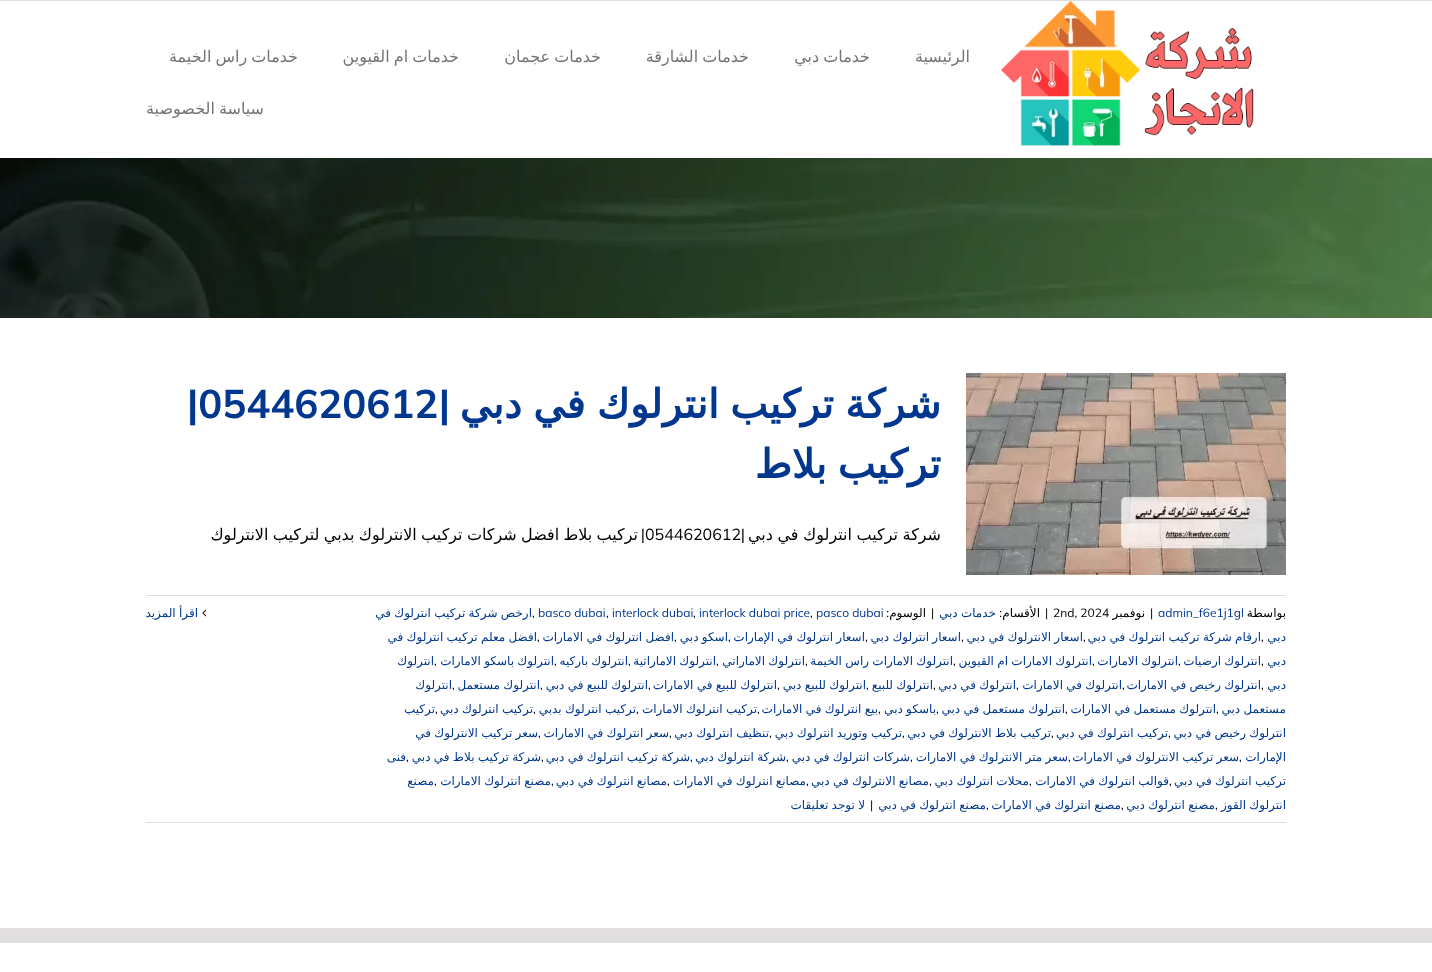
async function draw(canvas) {
	canvas.width = 1432;
	canvas.height = 972;
	const c = canvas.getContext('2d');
	c.miterLimit = 4;
	c.fontKerning = 'normal';
	async function loadImage(src) {
		const img = new Image();
		img.src = src;
		await img.decode();
		return img;
	}

	c.fillStyle = '#fff';
	c.fillRect(0, 0, 1432, 972);
	c.fillStyle = '#e0dede';
	c.fillRect(0, 0, 1432, 1);
	c.drawImage(await loadImage('img1.png'), 1001, 1, 253, 145);
	c.direction = 'rtl';
	c.font = '16px DejaVu Sans';
	c.fillStyle = '#747474';
	c.fillText('الرئيسية', 970, 62);
	c.wordSpacing = '-1px';
	for (const [text, x, y] of [
		['خدمات دبي', 870, 62],
		['خدمات الشارقة', 749, 62],
		['خدمات عجمان', 601, 62],
		['خدمات ام القيوين', 459, 62],
		['خدمات راس الخيمة', 298, 62],
		['سياسة الخصوصية', 264, 114],
	]) {
		c.fillText(text, x, y);
	}
	c.drawImage(await loadImage('img2.png'), 0, 158, 1432, 160);
	c.drawImage(await loadImage('img3.png'), 966, 373, 320, 202);
	c.wordSpacing = '-1.5px';
	c.font = 'bold 40px DejaVu Sans';
	c.fillStyle = '#01378e';
	c.fillText('شركة تركيب انترلوك في دبي', 941, 418);
	c.wordSpacing = '0px';
	c.font = 'bold 40px Mulish';
	c.fillText('|', 450, 418);
	c.direction = 'ltr';
	c.fillText('|0544620612', 187, 418);
	c.wordSpacing = '-2px';
	c.direction = 'rtl';
	c.font = 'bold 40px DejaVu Sans';
	c.fillText('تركيب بلاط', 941, 478);
	c.wordSpacing = '-0.5px';
	c.font = '16px DejaVu Sans';
	c.fillStyle = '#000';
	c.fillText('شركة تركيب انترلوك في دبي', 941, 540);
	c.wordSpacing = '-0.75px';
	c.fillText('تركيب بلاط افضل شركات تركيب الانترلوك بدبي لتركيب الانترلوك', 638, 540);
	c.wordSpacing = '0px';
	c.font = '16px Mulish';
	c.fillText('|', 745, 540);
	c.direction = 'ltr';
	c.fillText('0544620612', 645, 540);
	c.direction = 'rtl';
	c.fillText('|', 645, 540);
	c.fillStyle = '#e0dede';
	c.fillRect(146, 595, 1140, 1);
	c.fillRect(146, 822, 1140, 1);
	c.font = '12px DejaVu Sans';
	c.fillStyle = '#000';
	c.fillText('بواسطة', 1286, 617);
	c.direction = 'ltr';
	c.font = '12px Mulish';
	c.fillStyle = '#01378e';
	c.fillText('admin_f6e1j1gl', 1158, 617);
	c.fillStyle = '#000';
	c.fillText('|', 1150, 617);
	c.direction = 'rtl';
	c.font = '12px DejaVu Sans';
	c.fillText('نوفمبر', 1145, 617);
	c.direction = 'ltr';
	c.font = '12px Mulish';
	c.fillText('2nd, 2024', 1053, 617);
	c.fillText('|', 1045, 617);
	c.direction = 'rtl';
	c.font = '12px DejaVu Sans';
	c.fillText('الأقسام', 1040, 617);
	c.font = '12px Mulish';
	c.fillText(':', 1002, 617);
	c.wordSpacing = '-0.5px';
	c.font = '12px DejaVu Sans';
	c.fillStyle = '#01378e';
	c.fillText('خدمات دبي', 996, 617);
	c.wordSpacing = '0px';
	c.direction = 'ltr';
	c.font = '12px Mulish';
	c.fillStyle = '#000';
	c.fillText('|', 931, 617);
	c.direction = 'rtl';
	c.font = '12px DejaVu Sans';
	c.fillText('الوسوم', 926, 617);
	c.font = '12px Mulish';
	c.fillText(':', 889, 617);
	c.direction = 'ltr';
	c.fillStyle = '#01378e';
	for (const [text, x, y] of [
		['pasco dubai', 816, 617],
		['interlock dubai price', 699, 617],
		['interlock dubai', 612, 617],
		['basco dubai', 538, 617],
	]) {
		c.fillText(text, x, y);
	}
	c.fillStyle = '#000';
	c.fillText(',', 532, 617);
	c.wordSpacing = '-0.5px';
	c.direction = 'rtl';
	c.font = '12px DejaVu Sans';
	c.fillStyle = '#01378e';
	c.fillText('ارخص شركة تركيب انترلوك في', 532, 617);
	c.wordSpacing = '0px';
	c.direction = 'ltr';
	c.font = '12px Mulish';
	c.fillStyle = '#000';
	for (const [text, x, y] of [
		[',', 810, 617],
		[',', 693, 617],
		[',', 606, 617],
	]) {
		c.fillText(text, x, y);
	}
	c.direction = 'rtl';
	c.font = '12px DejaVu Sans';
	c.fillStyle = '#01378e';
	c.fillText('دبي', 1286, 641);
	c.direction = 'ltr';
	c.font = '12px Mulish';
	c.fillStyle = '#000';
	c.fillText(',', 1261, 641);
	c.wordSpacing = '-0.5px';
	c.direction = 'rtl';
	c.font = '12px DejaVu Sans';
	c.fillStyle = '#01378e';
	c.fillText('ارقام شركة تركيب انترلوك في دبي', 1261, 641);
	c.wordSpacing = '0px';
	c.direction = 'ltr';
	c.font = '12px Mulish';
	c.fillStyle = '#000';
	c.fillText(',', 1083, 641);
	c.wordSpacing = '-0.5px';
	c.direction = 'rtl';
	c.font = '12px DejaVu Sans';
	c.fillStyle = '#01378e';
	c.fillText('اسعار الانترلوك في دبي', 1083, 641);
	c.wordSpacing = '0px';
	c.direction = 'ltr';
	c.font = '12px Mulish';
	c.fillStyle = '#000';
	c.fillText(',', 961, 641);
	c.wordSpacing = '-0.5px';
	c.direction = 'rtl';
	c.font = '12px DejaVu Sans';
	c.fillStyle = '#01378e';
	c.fillText('اسعار انترلوك دبي', 961, 641);
	c.wordSpacing = '0px';
	c.direction = 'ltr';
	c.font = '12px Mulish';
	c.fillStyle = '#000';
	c.fillText(',', 865, 641);
	c.wordSpacing = '-0.5px';
	c.direction = 'rtl';
	c.font = '12px DejaVu Sans';
	c.fillStyle = '#01378e';
	c.fillText('اسعار انترلوك في الإمارات', 865, 641);
	c.fillText('اسكو دبي', 728, 641);
	c.wordSpacing = '0px';
	c.direction = 'ltr';
	c.font = '12px Mulish';
	c.fillStyle = '#000';
	c.fillText(',', 674, 641);
	c.wordSpacing = '-0.5px';
	c.direction = 'rtl';
	c.font = '12px DejaVu Sans';
	c.fillStyle = '#01378e';
	c.fillText('افضل انترلوك في الامارات', 674, 641);
	c.wordSpacing = '0px';
	c.direction = 'ltr';
	c.font = '12px Mulish';
	c.fillStyle = '#000';
	c.fillText(',', 537, 641);
	c.wordSpacing = '-0.5px';
	c.direction = 'rtl';
	c.font = '12px DejaVu Sans';
	c.fillStyle = '#01378e';
	c.fillText('افضل معلم تركيب انترلوك في', 537, 641);
	c.wordSpacing = '0px';
	c.direction = 'ltr';
	c.font = '12px Mulish';
	c.fillStyle = '#000';
	c.fillText(',', 728, 641);
	c.direction = 'rtl';
	c.font = '12px DejaVu Sans';
	c.fillStyle = '#01378e';
	c.fillText('دبي', 1286, 665);
	c.wordSpacing = '-0.5px';
	c.fillText('انترلوك ارضيات', 1261, 665);
	c.fillText('انترلوك الامارات', 1178, 665);
	c.wordSpacing = '0px';
	c.direction = 'ltr';
	c.font = '12px Mulish';
	c.fillStyle = '#000';
	c.fillText(',', 1092, 665);
	c.wordSpacing = '-0.5px';
	c.direction = 'rtl';
	c.font = '12px DejaVu Sans';
	c.fillStyle = '#01378e';
	c.fillText('انترلوك الامارات ام القيوين', 1092, 665);
	c.wordSpacing = '0px';
	c.direction = 'ltr';
	c.font = '12px Mulish';
	c.fillStyle = '#000';
	c.fillText(',', 953, 665);
	c.wordSpacing = '-0.5px';
	c.direction = 'rtl';
	c.font = '12px DejaVu Sans';
	c.fillStyle = '#01378e';
	c.fillText('انترلوك الامارات راس الخيمة', 953, 665);
	c.wordSpacing = '0px';
	c.direction = 'ltr';
	c.font = '12px Mulish';
	c.fillStyle = '#000';
	c.fillText(',', 805, 665);
	c.wordSpacing = '-0.5px';
	c.direction = 'rtl';
	c.font = '12px DejaVu Sans';
	c.fillStyle = '#01378e';
	c.fillText('انترلوك الاماراتي', 805, 665);
	c.wordSpacing = '0px';
	c.direction = 'ltr';
	c.font = '12px Mulish';
	c.fillStyle = '#000';
	c.fillText(',', 716, 665);
	c.wordSpacing = '-0.5px';
	c.direction = 'rtl';
	c.font = '12px DejaVu Sans';
	c.fillStyle = '#01378e';
	c.fillText('انترلوك الاماراتية', 716, 665);
	c.wordSpacing = '0px';
	c.direction = 'ltr';
	c.font = '12px Mulish';
	c.fillStyle = '#000';
	c.fillText(',', 628, 665);
	c.wordSpacing = '-0.5px';
	c.direction = 'rtl';
	c.font = '12px DejaVu Sans';
	c.fillStyle = '#01378e';
	c.fillText('انترلوك باركيه', 628, 665);
	c.wordSpacing = '0px';
	c.direction = 'ltr';
	c.font = '12px Mulish';
	c.fillStyle = '#000';
	c.fillText(',', 554, 665);
	c.wordSpacing = '-0.5px';
	c.direction = 'rtl';
	c.font = '12px DejaVu Sans';
	c.fillStyle = '#01378e';
	c.fillText('انترلوك باسكو الامارات', 554, 665);
	c.wordSpacing = '0px';
	c.direction = 'ltr';
	c.font = '12px Mulish';
	c.fillStyle = '#000';
	c.fillText(',', 434, 665);
	c.direction = 'rtl';
	c.font = '12px DejaVu Sans';
	c.fillStyle = '#01378e';
	c.fillText('انترلوك', 434, 665);
	c.direction = 'ltr';
	c.font = '12px Mulish';
	c.fillStyle = '#000';
	c.fillText(',', 1261, 665);
	c.fillText(',', 1178, 665);
	c.direction = 'rtl';
	c.font = '12px DejaVu Sans';
	c.fillStyle = '#01378e';
	c.fillText('دبي', 1286, 689);
	c.direction = 'ltr';
	c.font = '12px Mulish';
	c.fillStyle = '#000';
	c.fillText(',', 1261, 689);
	c.wordSpacing = '-0.5px';
	c.direction = 'rtl';
	c.font = '12px DejaVu Sans';
	c.fillStyle = '#01378e';
	for (const [text, x, y] of [
		['انترلوك رخيص في الامارات', 1261, 689],
		['انترلوك في الامارات', 1122, 689],
		['انترلوك في دبي', 1016, 689],
		['انترلوك للبيع', 933, 689],
	]) {
		c.fillText(text, x, y);
	}
	c.wordSpacing = '0px';
	c.direction = 'ltr';
	c.font = '12px Mulish';
	c.fillStyle = '#000';
	c.fillText(',', 866, 689);
	c.wordSpacing = '-0.5px';
	c.direction = 'rtl';
	c.font = '12px DejaVu Sans';
	c.fillStyle = '#01378e';
	c.fillText('انترلوك للبيع دبي', 866, 689);
	c.wordSpacing = '0px';
	c.direction = 'ltr';
	c.font = '12px Mulish';
	c.fillStyle = '#000';
	c.fillText(',', 777, 689);
	c.wordSpacing = '-0.5px';
	c.direction = 'rtl';
	c.font = '12px DejaVu Sans';
	c.fillStyle = '#01378e';
	c.fillText('انترلوك للبيع في الامارات', 777, 689);
	c.wordSpacing = '0px';
	c.direction = 'ltr';
	c.font = '12px Mulish';
	c.fillStyle = '#000';
	c.fillText(',', 648, 689);
	c.wordSpacing = '-0.5px';
	c.direction = 'rtl';
	c.font = '12px DejaVu Sans';
	c.fillStyle = '#01378e';
	c.fillText('انترلوك للبيع في دبي', 648, 689);
	c.wordSpacing = '0px';
	c.direction = 'ltr';
	c.font = '12px Mulish';
	c.fillStyle = '#000';
	c.fillText(',', 540, 689);
	c.wordSpacing = '-0.5px';
	c.direction = 'rtl';
	c.font = '12px DejaVu Sans';
	c.fillStyle = '#01378e';
	c.fillText('انترلوك مستعمل', 540, 689);
	c.wordSpacing = '0px';
	c.direction = 'ltr';
	c.font = '12px Mulish';
	c.fillStyle = '#000';
	c.fillText(',', 452, 689);
	c.direction = 'rtl';
	c.font = '12px DejaVu Sans';
	c.fillStyle = '#01378e';
	c.fillText('انترلوك', 452, 689);
	c.direction = 'ltr';
	c.font = '12px Mulish';
	c.fillStyle = '#000';
	for (const [text, x, y] of [
		[',', 1122, 689],
		[',', 1016, 689],
		[',', 933, 689],
	]) {
		c.fillText(text, x, y);
	}
	c.wordSpacing = '-0.5px';
	c.direction = 'rtl';
	c.font = '12px DejaVu Sans';
	c.fillStyle = '#01378e';
	c.fillText('مستعمل دبي', 1286, 713);
	c.wordSpacing = '0px';
	c.direction = 'ltr';
	c.font = '12px Mulish';
	c.fillStyle = '#000';
	c.fillText(',', 1216, 713);
	c.wordSpacing = '-0.5px';
	c.direction = 'rtl';
	c.font = '12px DejaVu Sans';
	c.fillStyle = '#01378e';
	c.fillText('انترلوك مستعمل في الامارات', 1216, 713);
	c.wordSpacing = '0px';
	c.direction = 'ltr';
	c.font = '12px Mulish';
	c.fillStyle = '#000';
	c.fillText(',', 1065, 713);
	c.wordSpacing = '-0.5px';
	c.direction = 'rtl';
	c.font = '12px DejaVu Sans';
	c.fillStyle = '#01378e';
	c.fillText('انترلوك مستعمل في دبي', 1065, 713);
	c.fillText('باسكو دبي', 936, 713);
	c.wordSpacing = '0px';
	c.direction = 'ltr';
	c.font = '12px Mulish';
	c.fillStyle = '#000';
	c.fillText(',', 878, 713);
	c.wordSpacing = '-0.5px';
	c.direction = 'rtl';
	c.font = '12px DejaVu Sans';
	c.fillStyle = '#01378e';
	c.fillText('بيع انترلوك في الامارات', 878, 713);
	c.wordSpacing = '0px';
	c.direction = 'ltr';
	c.font = '12px Mulish';
	c.fillStyle = '#000';
	c.fillText(',', 757, 713);
	c.wordSpacing = '-0.5px';
	c.direction = 'rtl';
	c.font = '12px DejaVu Sans';
	c.fillStyle = '#01378e';
	c.fillText('تركيب انترلوك الامارات', 757, 713);
	c.wordSpacing = '0px';
	c.direction = 'ltr';
	c.font = '12px Mulish';
	c.fillStyle = '#000';
	c.fillText(',', 636, 713);
	c.wordSpacing = '-0.5px';
	c.direction = 'rtl';
	c.font = '12px DejaVu Sans';
	c.fillStyle = '#01378e';
	c.fillText('تركيب انترلوك بدبي', 636, 713);
	c.wordSpacing = '0px';
	c.direction = 'ltr';
	c.font = '12px Mulish';
	c.fillStyle = '#000';
	c.fillText(',', 533, 713);
	c.wordSpacing = '-0.5px';
	c.direction = 'rtl';
	c.font = '12px DejaVu Sans';
	c.fillStyle = '#01378e';
	c.fillText('تركيب انترلوك دبي', 533, 713);
	c.wordSpacing = '0px';
	c.direction = 'ltr';
	c.font = '12px Mulish';
	c.fillStyle = '#000';
	c.fillText(',', 435, 713);
	c.direction = 'rtl';
	c.font = '12px DejaVu Sans';
	c.fillStyle = '#01378e';
	c.fillText('تركيب', 435, 713);
	c.direction = 'ltr';
	c.font = '12px Mulish';
	c.fillStyle = '#000';
	c.fillText(',', 936, 713);
	c.save();
	c.beginPath();
	c.rect(146, 596, 1140, 226);
	c.clip();
	c.wordSpacing = '-0.5px';
	c.direction = 'rtl';
	c.font = '12px DejaVu Sans';
	c.fillStyle = '#01378e';
	c.fillText('انترلوك رخيص في دبي', 1286, 737);
	c.restore();
	c.fillText(',', 1168, 737);
	c.wordSpacing = '-0.5px';
	c.direction = 'rtl';
	c.font = '12px DejaVu Sans';
	c.fillStyle = '#01378e';
	c.fillText('تركيب انترلوك في دبي', 1168, 737);
	c.wordSpacing = '0px';
	c.direction = 'ltr';
	c.font = '12px Mulish';
	c.fillStyle = '#000';
	c.fillText(',', 1051, 737);
	c.wordSpacing = '-0.5px';
	c.direction = 'rtl';
	c.font = '12px DejaVu Sans';
	c.fillStyle = '#01378e';
	c.fillText('تركيب بلاط الانترلوك في دبي', 1051, 737);
	c.wordSpacing = '0px';
	c.direction = 'ltr';
	c.font = '12px Mulish';
	c.fillStyle = '#000';
	c.fillText(',', 902, 737);
	c.wordSpacing = '-0.5px';
	c.direction = 'rtl';
	c.font = '12px DejaVu Sans';
	c.fillStyle = '#01378e';
	c.fillText('تركيب وتوريد انترلوك دبي', 902, 737);
	c.wordSpacing = '0px';
	c.direction = 'ltr';
	c.font = '12px Mulish';
	c.fillStyle = '#000';
	c.fillText(',', 769, 737);
	c.wordSpacing = '-0.5px';
	c.direction = 'rtl';
	c.font = '12px DejaVu Sans';
	c.fillStyle = '#01378e';
	c.fillText('تنظيف انترلوك دبي', 769, 737);
	c.wordSpacing = '0px';
	c.direction = 'ltr';
	c.font = '12px Mulish';
	c.fillStyle = '#000';
	c.fillText(',', 669, 737);
	c.wordSpacing = '-0.5px';
	c.direction = 'rtl';
	c.font = '12px DejaVu Sans';
	c.fillStyle = '#01378e';
	c.fillText('سعر انترلوك في الامارات', 669, 737);
	c.wordSpacing = '0px';
	c.direction = 'ltr';
	c.font = '12px Mulish';
	c.fillStyle = '#000';
	c.fillText(',', 538, 737);
	c.wordSpacing = '-0.5px';
	c.direction = 'rtl';
	c.font = '12px DejaVu Sans';
	c.fillStyle = '#01378e';
	c.fillText('سعر تركيب الانترلوك في', 538, 737);
	c.wordSpacing = '0px';
	c.fillText('الإمارات', 1286, 761);
	c.direction = 'ltr';
	c.font = '12px Mulish';
	c.fillStyle = '#000';
	c.fillText(',', 1239, 761);
	c.wordSpacing = '-0.5px';
	c.direction = 'rtl';
	c.font = '12px DejaVu Sans';
	c.fillStyle = '#01378e';
	c.fillText('سعر تركيب الانترلوك في الامارات', 1239, 761);
	c.wordSpacing = '0px';
	c.direction = 'ltr';
	c.font = '12px Mulish';
	c.fillStyle = '#000';
	c.fillText(',', 1068, 761);
	c.wordSpacing = '-0.5px';
	c.direction = 'rtl';
	c.font = '12px DejaVu Sans';
	c.fillStyle = '#01378e';
	c.fillText('سعر متر الانترلوك في الامارات', 1068, 761);
	c.wordSpacing = '0px';
	c.direction = 'ltr';
	c.font = '12px Mulish';
	c.fillStyle = '#000';
	c.fillText(',', 910, 761);
	c.wordSpacing = '-0.5px';
	c.direction = 'rtl';
	c.font = '12px DejaVu Sans';
	c.fillStyle = '#01378e';
	c.fillText('شركات انترلوك في دبي', 910, 761);
	c.fillText('شركة انترلوك دبي', 786, 761);
	c.wordSpacing = '0px';
	c.direction = 'ltr';
	c.font = '12px Mulish';
	c.fillStyle = '#000';
	c.fillText(',', 690, 761);
	c.wordSpacing = '-0.5px';
	c.direction = 'rtl';
	c.font = '12px DejaVu Sans';
	c.fillStyle = '#01378e';
	c.fillText('شركة تركيب انترلوك في دبي', 690, 761);
	c.wordSpacing = '0px';
	c.direction = 'ltr';
	c.font = '12px Mulish';
	c.fillStyle = '#000';
	c.fillText(',', 541, 761);
	c.wordSpacing = '-0.5px';
	c.direction = 'rtl';
	c.font = '12px DejaVu Sans';
	c.fillStyle = '#01378e';
	c.fillText('شركة تركيب بلاط في دبي', 541, 761);
	c.wordSpacing = '0px';
	c.direction = 'ltr';
	c.font = '12px Mulish';
	c.fillStyle = '#000';
	c.fillText(',', 406, 761);
	c.direction = 'rtl';
	c.font = '12px DejaVu Sans';
	c.fillStyle = '#01378e';
	c.fillText('فنى', 406, 761);
	c.direction = 'ltr';
	c.font = '12px Mulish';
	c.fillStyle = '#000';
	c.fillText(',', 786, 761);
	c.save();
	c.beginPath();
	c.rect(146, 596, 1140, 226);
	c.clip();
	c.wordSpacing = '-0.5px';
	c.direction = 'rtl';
	c.font = '12px DejaVu Sans';
	c.fillStyle = '#01378e';
	c.fillText('تركيب انترلوك في دبي', 1286, 785);
	c.restore();
	c.fillText(',', 1169, 785);
	c.wordSpacing = '-0.5px';
	c.direction = 'rtl';
	c.font = '12px DejaVu Sans';
	c.fillStyle = '#01378e';
	c.fillText('قوالب انترلوك في الامارات', 1169, 785);
	c.fillText('محلات انترلوك دبي', 1029, 785);
	c.wordSpacing = '0px';
	c.direction = 'ltr';
	c.font = '12px Mulish';
	c.fillStyle = '#000';
	c.fillText(',', 929, 785);
	c.wordSpacing = '-0.5px';
	c.direction = 'rtl';
	c.font = '12px DejaVu Sans';
	c.fillStyle = '#01378e';
	c.fillText('مصانع الانترلوك في دبي', 929, 785);
	c.wordSpacing = '0px';
	c.direction = 'ltr';
	c.font = '12px Mulish';
	c.fillStyle = '#000';
	c.fillText(',', 806, 785);
	c.wordSpacing = '-0.5px';
	c.direction = 'rtl';
	c.font = '12px DejaVu Sans';
	c.fillStyle = '#01378e';
	c.fillText('مصانع انترلوك في الامارات', 806, 785);
	c.wordSpacing = '0px';
	c.direction = 'ltr';
	c.font = '12px Mulish';
	c.fillStyle = '#000';
	c.fillText(',', 667, 785);
	c.wordSpacing = '-0.5px';
	c.direction = 'rtl';
	c.font = '12px DejaVu Sans';
	c.fillStyle = '#01378e';
	c.fillText('مصانع انترلوك في دبي', 667, 785);
	c.wordSpacing = '0px';
	c.direction = 'ltr';
	c.font = '12px Mulish';
	c.fillStyle = '#000';
	c.fillText(',', 551, 785);
	c.wordSpacing = '-0.5px';
	c.direction = 'rtl';
	c.font = '12px DejaVu Sans';
	c.fillStyle = '#01378e';
	c.fillText('مصنع انترلوك الامارات', 551, 785);
	c.wordSpacing = '0px';
	c.direction = 'ltr';
	c.font = '12px Mulish';
	c.fillStyle = '#000';
	c.fillText(',', 434, 785);
	c.direction = 'rtl';
	c.font = '12px DejaVu Sans';
	c.fillStyle = '#01378e';
	c.fillText('مصنع', 434, 785);
	c.direction = 'ltr';
	c.font = '12px Mulish';
	c.fillStyle = '#000';
	c.fillText(',', 1029, 785);
	c.wordSpacing = '-0.5px';
	c.direction = 'rtl';
	c.font = '12px DejaVu Sans';
	c.fillStyle = '#01378e';
	c.fillText('انترلوك القوز', 1286, 809);
	c.fillText('مصنع انترلوك دبي', 1215, 809);
	c.wordSpacing = '0px';
	c.direction = 'ltr';
	c.font = '12px Mulish';
	c.fillStyle = '#000';
	c.fillText(',', 1121, 809);
	c.wordSpacing = '-0.5px';
	c.direction = 'rtl';
	c.font = '12px DejaVu Sans';
	c.fillStyle = '#01378e';
	c.fillText('مصنع انترلوك في الامارات', 1121, 809);
	c.wordSpacing = '0px';
	c.direction = 'ltr';
	c.font = '12px Mulish';
	c.fillStyle = '#000';
	c.fillText(',', 986, 809);
	c.wordSpacing = '-0.5px';
	c.direction = 'rtl';
	c.font = '12px DejaVu Sans';
	c.fillStyle = '#01378e';
	c.fillText('مصنع انترلوك في دبي', 986, 809);
	c.wordSpacing = '0px';
	c.direction = 'ltr';
	c.font = '12px Mulish';
	c.fillStyle = '#000';
	c.fillText('|', 870, 809);
	c.wordSpacing = '-0.5px';
	c.direction = 'rtl';
	c.font = '12px DejaVu Sans';
	c.fillStyle = '#01378e';
	c.fillText('لا توجد تعليقات', 865, 809);
	c.wordSpacing = '0px';
	c.direction = 'ltr';
	c.font = '12px Mulish';
	c.fillStyle = '#000';
	c.fillText(',', 1215, 809);
	c.drawImage(await loadImage('img4.png'), 202, 609, 5, 8);
	c.wordSpacing = '-0.5px';
	c.direction = 'rtl';
	c.font = '12px DejaVu Sans';
	c.fillStyle = '#01378e';
	c.fillText('اقرأ المزيد', 198, 617);
	c.fillStyle = '#e0dede';
	c.fillRect(0, 928, 1432, 15);
}

draw(document.querySelector('canvas'));
